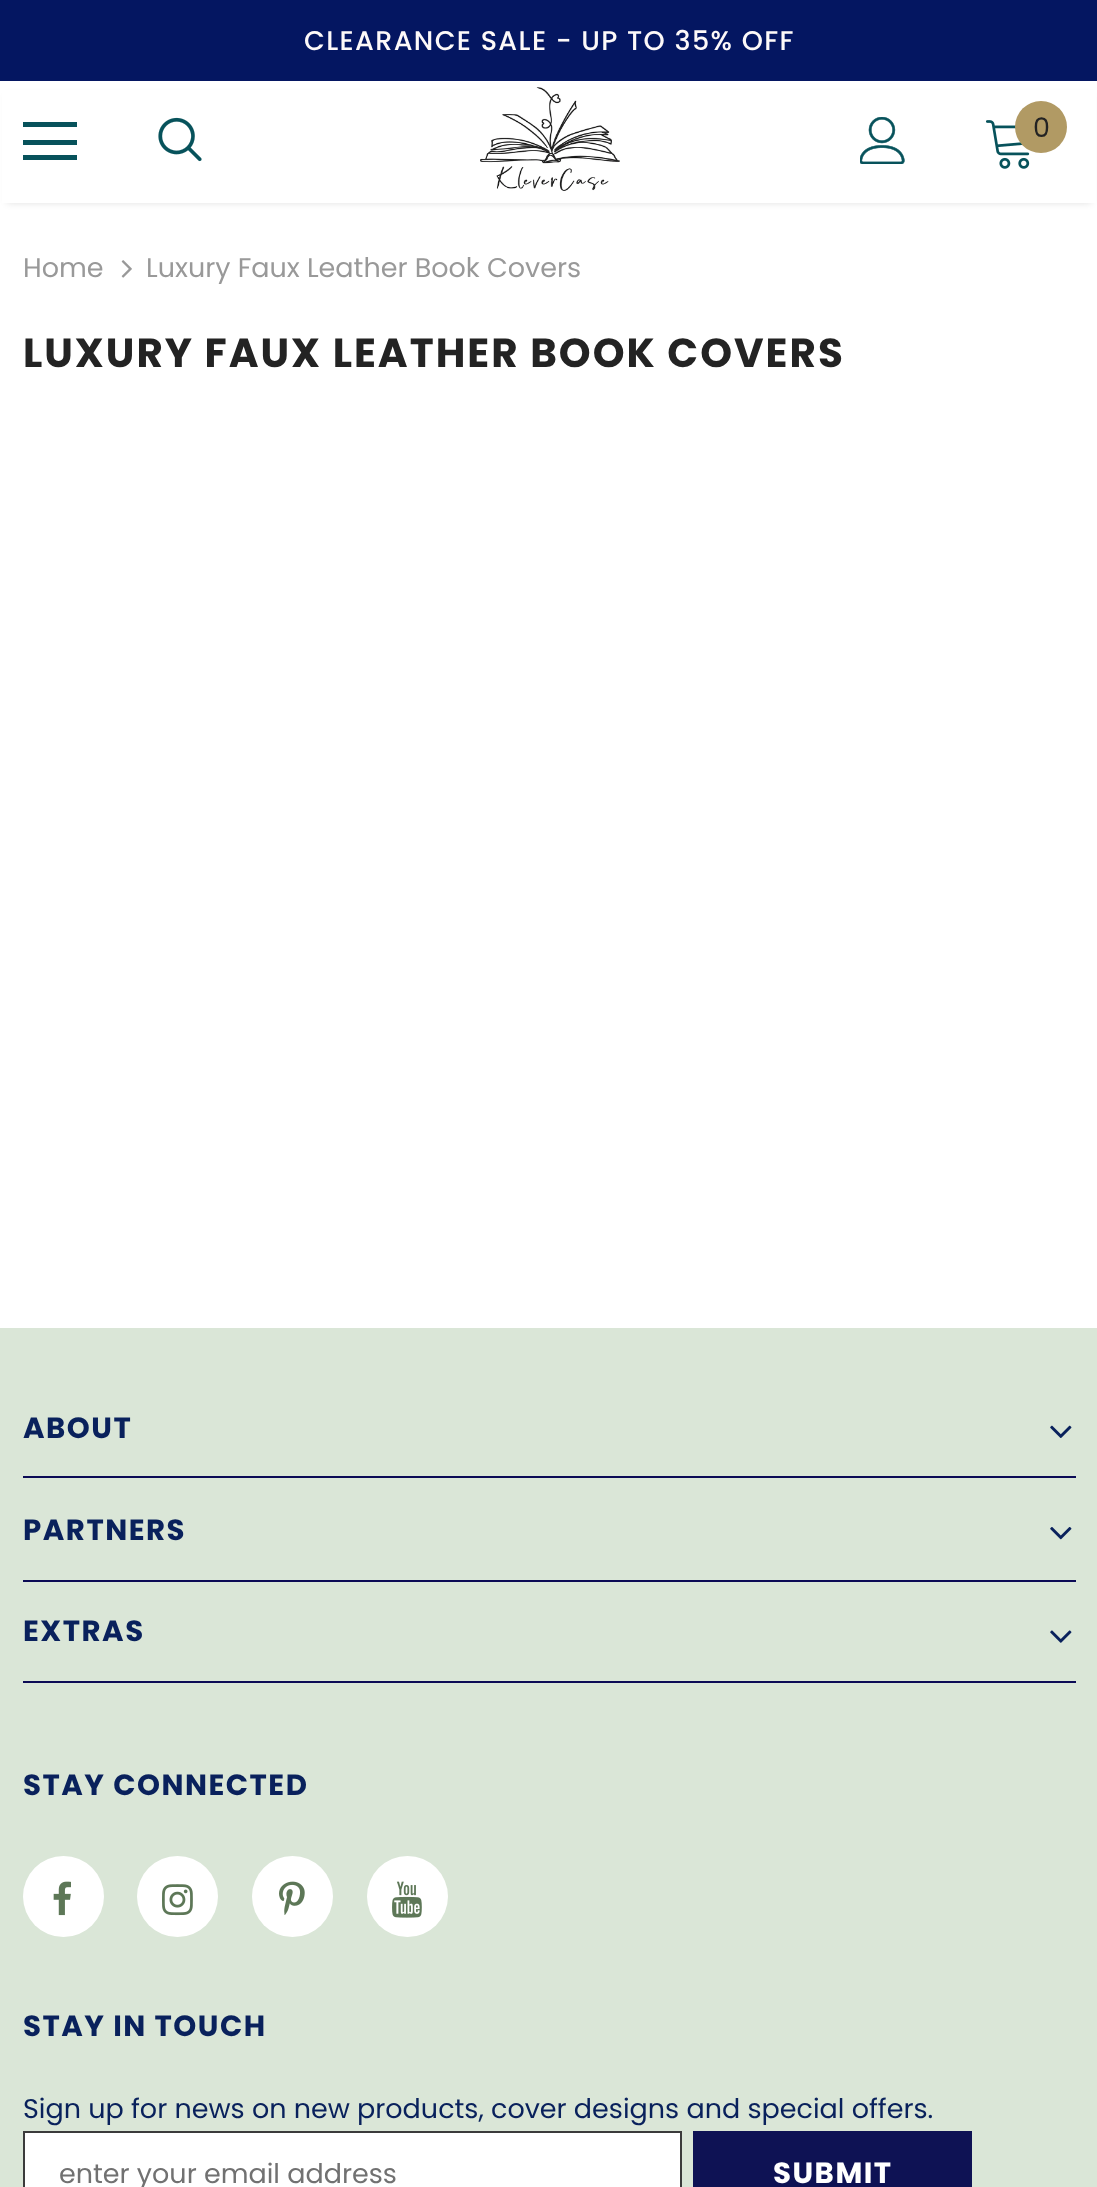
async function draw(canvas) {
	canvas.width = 1097;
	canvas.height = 2187;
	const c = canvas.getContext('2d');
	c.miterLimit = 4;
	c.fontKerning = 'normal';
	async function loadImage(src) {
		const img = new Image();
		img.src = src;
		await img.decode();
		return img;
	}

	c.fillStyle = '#fff';
	c.fillRect(0, 0, 1097, 2187);
	c.fillStyle = '#041661';
	c.fillRect(0, 0, 1097, 81);
	c.letterSpacing = '1.35px';
	c.font = '500 27px Poppins';
	c.fillStyle = '#fdf9f9';
	c.fillText('CLEARANCE SALE - UP TO 35% OFF', 304, 50);
	c.fillStyle = '#0000001f';
	c.filter = 'blur(3.5px)';
	c.beginPath();
	c.rect(7, 95, 1084, 108);
	c.fill();
	c.filter = 'none';
	for (const [x, y, w, h, color] of [
		[2, 90, 1094, 113, '#fff'],
		[23, 122, 54, 5, '#07525b'],
		[23, 140, 54, 5, '#07525b'],
		[23, 155, 54, 5, '#07525b'],
	]) {
		c.fillStyle = color;
		c.fillRect(x, y, w, h);
	}
	c.drawImage(await loadImage('img1.png'), 158, 117, 44, 45);
	c.drawImage(await loadImage('img2.png'), 480, 87, 140, 104);
	c.drawImage(await loadImage('img3.png'), 860, 117, 45, 47);
	c.drawImage(await loadImage('img4.png'), 986, 120, 44, 49);
	c.fillStyle = '#b19a64';
	c.beginPath();
	c.arc(1041, 127, 26, 0, 2 * Math.PI);
	c.fill();
	c.letterSpacing = '0px';
	c.font = '27px Poppins';
	c.fillStyle = '#232323';
	c.fillText('0', 1033, 137);
	c.fillStyle = '#999';
	c.fillText('Home', 23, 277);
	c.drawImage(await loadImage('img5.png'), 121, 260, 11, 18);
	c.fillText('Luxury Faux Leather Book Covers', 146, 277);
	c.letterSpacing = '2px';
	c.font = 'bold 40.5px Poppins';
	c.fillStyle = '#232323';
	c.fillText('LUXURY FAUX LEATHER BOOK COVERS', 23, 367);
	c.fillStyle = '#dae6d7';
	c.fillRect(0, 1328, 1097, 859);
	c.fillStyle = '#0b0b55';
	c.fillRect(23, 1476, 1053, 2);
	c.letterSpacing = '1.5px';
	c.font = 'bold 29.25px Poppins';
	c.fillStyle = '#09215c';
	c.fillText('ABOUT', 23, 1438);
	c.drawImage(await loadImage('img6.png'), 1050, 1425, 22, 13);
	c.fillStyle = '#0b0b55';
	c.fillRect(23, 1580, 1053, 2);
	c.fillStyle = '#09215c';
	c.fillText('PARTNERS', 23, 1540);
	c.drawImage(await loadImage('img7.png'), 1050, 1527, 22, 13);
	c.fillStyle = '#0b0b55';
	c.fillRect(23, 1681, 1053, 2);
	c.fillStyle = '#09215c';
	c.fillText('EXTRAS', 23, 1641);
	c.drawImage(await loadImage('img8.png'), 1050, 1630, 22, 13);
	c.fillText('STAY CONNECTED', 23, 1795);
	c.fillStyle = '#fff';
	c.beginPath();
	c.arc(63.5, 1896.5, 40.5, 0, 2 * Math.PI);
	c.fill();
	c.drawImage(await loadImage('img9.png'), 53, 1881, 18, 35);
	c.beginPath();
	c.arc(177.5, 1896.5, 40.5, 0, 2 * Math.PI);
	c.fill();
	c.drawImage(await loadImage('img10.png'), 162, 1884, 31, 32);
	c.beginPath();
	c.arc(292.5, 1896.5, 40.5, 0, 2 * Math.PI);
	c.fill();
	c.drawImage(await loadImage('img11.png'), 279, 1881, 26, 34);
	c.beginPath();
	c.arc(407.5, 1896.5, 40.5, 0, 2 * Math.PI);
	c.fill();
	c.drawImage(await loadImage('img12.png'), 392, 1881, 30, 37);
	c.fillStyle = '#09215c';
	c.fillText('STAY IN TOUCH', 23, 2036);
	c.letterSpacing = '0px';
	c.font = '27px Poppins';
	c.fillText('Sign up for news on new products, cover designs and special offers.', 23, 2118);
	c.fillStyle = '#fff';
	c.beginPath();
	c.rect(24, 2132, 657, 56);
	c.fill();
	c.strokeStyle = '#3b3b3b';
	c.lineWidth = 2;
	c.stroke();
	c.fillStyle = '#717171';
	c.fillText('enter your email address', 59, 2183);
	c.fillStyle = '#0e1254';
	c.fillRect(693, 2131, 279, 56);
	c.letterSpacing = '1.5px';
	c.font = 'bold 29.25px Poppins';
	c.fillStyle = '#fff';
	c.fillText('SUBMIT', 773, 2183);
}

draw(document.querySelector('canvas'));
